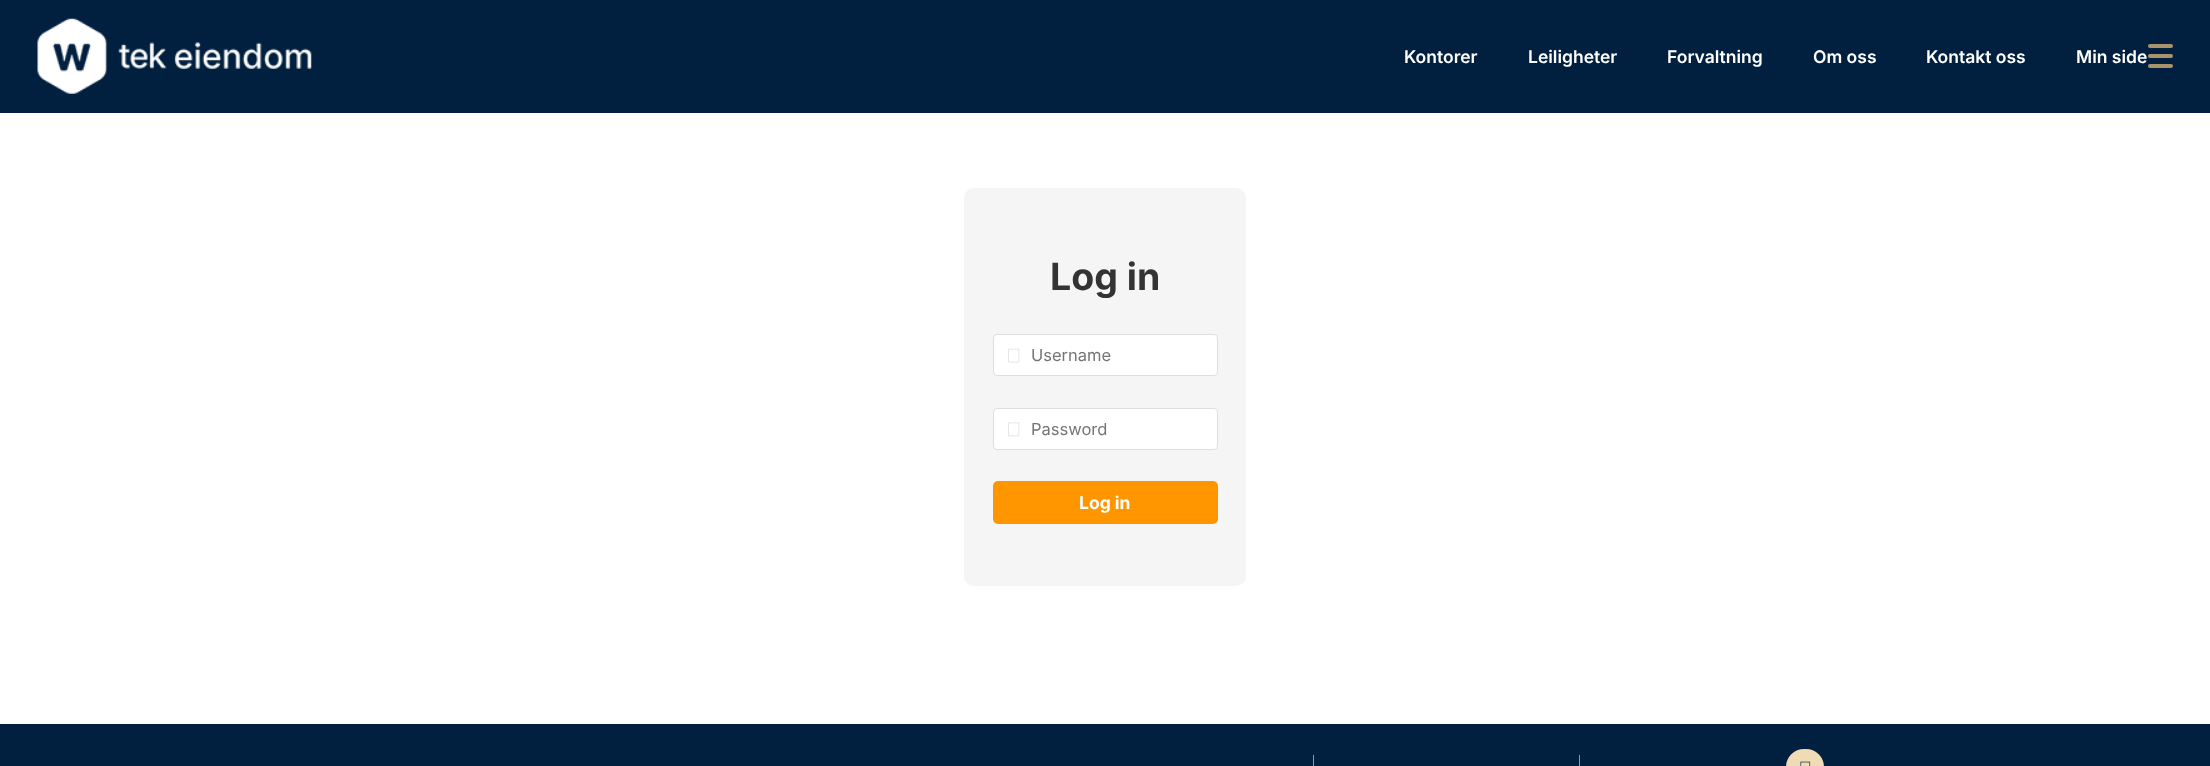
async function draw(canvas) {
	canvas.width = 2210;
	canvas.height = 766;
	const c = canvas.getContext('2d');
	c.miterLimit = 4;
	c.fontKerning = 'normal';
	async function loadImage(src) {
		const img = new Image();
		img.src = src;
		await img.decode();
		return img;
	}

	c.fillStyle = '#fff';
	c.fillRect(0, 0, 2210, 766);
	c.fillStyle = '#01203f';
	c.fillRect(0, 0, 2210, 113);
	c.drawImage(await loadImage('img1.png'), 37, 18, 275, 76);
	c.font = '600 17.5px Inter';
	c.fillStyle = '#fff';
	for (const [text, x, y] of [
		['Kontorer', 1404, 63],
		['Leiligheter', 1528, 63],
		['Forvaltning', 1667, 63],
		['Om oss', 1813, 63],
		['Kontakt oss', 1926, 63],
		['Min side', 2076, 63],
	]) {
		c.fillText(text, x, y);
	}
	c.fillStyle = '#aa926d';
	c.beginPath();
	c.roundRect(2148, 44, 25, 4, 2);
	c.fill();
	c.beginPath();
	c.roundRect(2148, 54, 25, 4, 2);
	c.fill();
	c.beginPath();
	c.roundRect(2148, 64, 25, 4, 2);
	c.fill();
	c.fillStyle = '#f5f5f5';
	c.beginPath();
	c.roundRect(964, 188, 282, 398, 10);
	c.fill();
	c.font = 'bold 37.5px Inter';
	c.fillStyle = '#333';
	c.fillText('Log in', 1050, 290);
	c.fillStyle = '#fff';
	c.beginPath();
	c.roundRect(993.5, 334.5, 224, 41, 3.5);
	c.fill();
	c.strokeStyle = '#dedede';
	c.stroke();
	c.drawImage(await loadImage('img2.png'), 1008, 348, 12, 15);
	c.font = '16.5px Inter';
	c.fillStyle = '#757575';
	c.fillText('Username', 1031, 361);
	c.fillStyle = '#fff';
	c.beginPath();
	c.roundRect(993.5, 408.5, 224, 41, 3.5);
	c.fill();
	c.stroke();
	c.drawImage(await loadImage('img3.png'), 1008, 422, 12, 15);
	c.fillStyle = '#757575';
	c.fillText('Password', 1031, 435);
	c.fillStyle = '#ff9600';
	c.beginPath();
	c.roundRect(993, 481, 225, 43, 5);
	c.fill();
	c.font = 'bold 17.5px Inter';
	c.fillStyle = '#fff';
	c.fillText('Log in', 1079, 509);
	for (const [x, y, w, h, color] of [
		[0, 724, 2210, 42, '#01203f'],
		[1313, 755, 1, 11, '#969696'],
		[1579, 755, 1, 11, '#969696'],
	]) {
		c.fillStyle = color;
		c.fillRect(x, y, w, h);
	}
	c.fillStyle = '#efdbb4';
	c.beginPath();
	c.roundRect(1786, 749, 38, 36, 18.5);
	c.fill();
	c.drawImage(await loadImage('img4.png'), 1800, 761, 11, 5);
}

draw(document.querySelector('canvas'));
